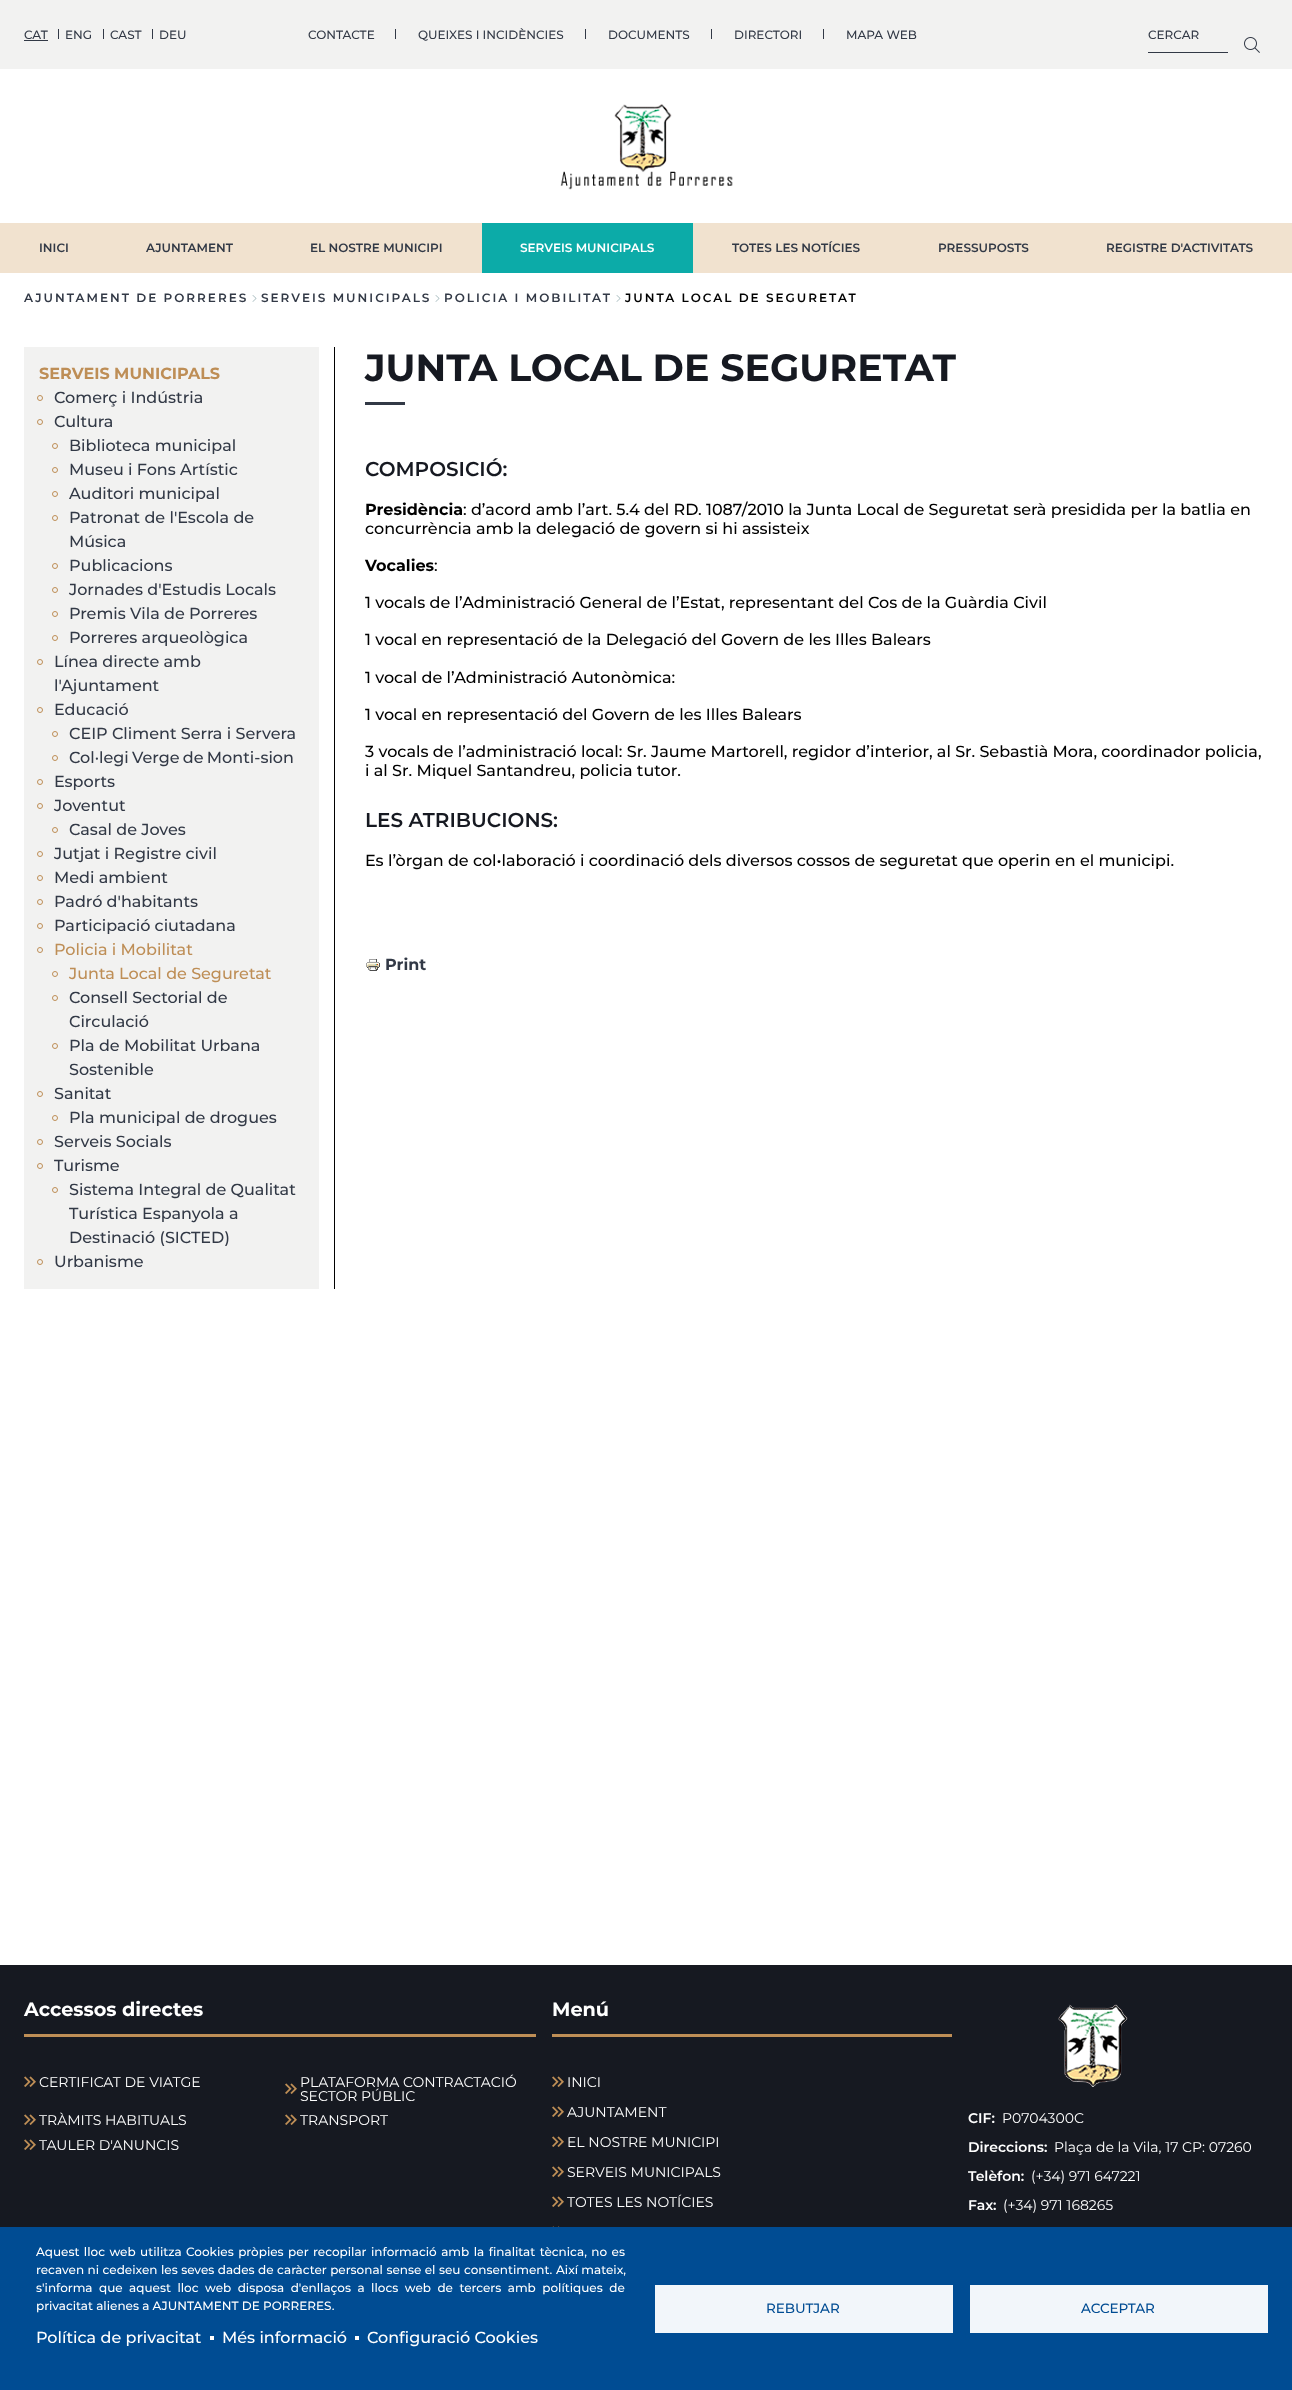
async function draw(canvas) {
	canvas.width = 1292;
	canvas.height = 2390;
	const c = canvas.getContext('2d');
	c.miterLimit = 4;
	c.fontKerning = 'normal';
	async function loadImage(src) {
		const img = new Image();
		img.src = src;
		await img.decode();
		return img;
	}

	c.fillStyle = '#fff';
	c.fillRect(0, 0, 1292, 2390);
	c.fillStyle = '#f2f2f1';
	c.fillRect(0, 0, 1292, 69);
	c.font = '500 12px Montserrat';
	c.fillStyle = '#323946';
	c.fillText('CAT', 24, 39);
	c.fillRect(24, 40, 24, 1);
	c.fillRect(58, 29, 1, 10);
	c.fillText('ENG', 65, 39);
	c.fillRect(103, 29, 1, 10);
	c.fillText('CAST', 110, 39);
	c.fillRect(152, 29, 1, 10);
	c.fillText('DEU', 159, 39);
	c.fillText('CONTACTE', 308, 39);
	c.fillRect(395, 29, 1, 10);
	c.fillText('QUEIXES I INCIDÈNCIES', 418, 39);
	c.fillRect(585, 29, 1, 10);
	c.fillText('DOCUMENTS', 608, 39);
	c.fillRect(711, 29, 1, 10);
	c.fillText('DIRECTORI', 734, 39);
	c.fillRect(823, 29, 1, 10);
	c.fillText('MAPA WEB', 846, 39);
	c.fillRect(1148, 52, 80, 1);
	c.fillText('CERCAR', 1148, 39);
	c.drawImage(await loadImage('img1.png'), 1244, 37, 16, 16);
	c.drawImage(await loadImage('img2.png'), 560, 104, 173, 86);
	c.fillStyle = '#f1e2cf';
	c.fillRect(0, 223, 1292, 50);
	c.font = '600 12px Montserrat';
	c.fillStyle = '#323946';
	for (const [text, x, y] of [
		['INICI', 39, 252],
		['AJUNTAMENT', 146, 252],
		['EL NOSTRE MUNICIPI', 310, 252],
	]) {
		c.fillText(text, x, y);
	}
	c.fillStyle = '#0caba8';
	c.fillRect(482, 223, 211, 50);
	c.fillStyle = '#fff';
	c.fillText('SERVEIS MUNICIPALS', 520, 252);
	c.fillStyle = '#323946';
	for (const [text, x, y] of [
		['TOTES LES NOTÍCIES', 732, 252],
		['PRESSUPOSTS', 938, 252],
		['REGISTRE D\'ACTIVITATS', 1106, 252],
	]) {
		c.fillText(text, x, y);
	}
	c.letterSpacing = '2px';
	c.fillText('AJUNTAMENT DE PORRERES', 24, 302);
	c.drawImage(await loadImage('img3.png'), 252, 295, 5, 7);
	c.fillText('SERVEIS MUNICIPALS', 261, 302);
	c.drawImage(await loadImage('img3.png'), 435, 295, 5, 7);
	c.fillText('POLICIA I MOBILITAT', 444, 302);
	c.drawImage(await loadImage('img3.png'), 616, 295, 5, 7);
	c.fillStyle = '#000';
	c.fillText('JUNTA LOCAL DE SEGURETAT', 625, 302);
	c.fillRect(334, 347, 1, 942);
	c.fillStyle = '#f2f2f1';
	c.fillRect(24, 347, 295, 942);
	c.letterSpacing = '0px';
	c.font = 'bold 16px Montserrat';
	c.fillStyle = '#be8e56';
	c.fillText('SERVEIS MUNICIPALS', 39, 379);
	c.beginPath();
	c.arc(40, 398, 2.5, 0, 2 * Math.PI);
	c.strokeStyle = '#be8e56';
	c.stroke();
	c.font = '500 16px Montserrat';
	c.fillStyle = '#323946';
	c.fillText('Comerç i Indústria', 54, 403);
	c.beginPath();
	c.arc(40, 422, 2.5, 0, 2 * Math.PI);
	c.stroke();
	c.fillText('Cultura', 54, 427);
	c.beginPath();
	c.arc(55, 446, 2.5, 0, 2 * Math.PI);
	c.stroke();
	c.fillText('Biblioteca municipal', 69, 451);
	c.beginPath();
	c.arc(55, 470, 2.5, 0, 2 * Math.PI);
	c.stroke();
	c.fillText('Museu i Fons Artístic', 69, 475);
	c.beginPath();
	c.arc(55, 494, 2.5, 0, 2 * Math.PI);
	c.stroke();
	c.fillText('Auditori municipal', 69, 499);
	c.beginPath();
	c.arc(55, 518, 2.5, 0, 2 * Math.PI);
	c.stroke();
	c.fillText('Patronat de l\'Escola de', 69, 523);
	c.fillText('Música', 69, 547);
	c.beginPath();
	c.arc(55, 566, 2.5, 0, 2 * Math.PI);
	c.stroke();
	c.fillText('Publicacions', 69, 571);
	c.beginPath();
	c.arc(55, 590, 2.5, 0, 2 * Math.PI);
	c.stroke();
	c.fillText('Jornades d\'Estudis Locals', 69, 595);
	c.beginPath();
	c.arc(55, 614, 2.5, 0, 2 * Math.PI);
	c.stroke();
	c.fillText('Premis Vila de Porreres', 69, 619);
	c.beginPath();
	c.arc(55, 638, 2.5, 0, 2 * Math.PI);
	c.stroke();
	c.fillText('Porreres arqueològica', 69, 643);
	c.beginPath();
	c.arc(40, 662, 2.5, 0, 2 * Math.PI);
	c.stroke();
	c.fillText('Línea directe amb', 54, 667);
	c.fillText('l\'Ajuntament', 54, 691);
	c.beginPath();
	c.arc(40, 710, 2.5, 0, 2 * Math.PI);
	c.stroke();
	c.fillText('Educació', 54, 715);
	c.beginPath();
	c.arc(55, 734, 2.5, 0, 2 * Math.PI);
	c.stroke();
	c.fillText('CEIP Climent Serra i Servera', 69, 739);
	c.beginPath();
	c.arc(55, 758, 2.5, 0, 2 * Math.PI);
	c.stroke();
	c.wordSpacing = '-1px';
	c.fillText('Col·legi Verge de Monti-sion', 69, 763);
	c.beginPath();
	c.arc(40, 782, 2.5, 0, 2 * Math.PI);
	c.stroke();
	c.wordSpacing = '0px';
	c.fillText('Esports', 54, 787);
	c.beginPath();
	c.arc(40, 806, 2.5, 0, 2 * Math.PI);
	c.stroke();
	c.fillText('Joventut', 54, 811);
	c.beginPath();
	c.arc(55, 830, 2.5, 0, 2 * Math.PI);
	c.stroke();
	c.fillText('Casal de Joves', 69, 835);
	c.beginPath();
	c.arc(40, 854, 2.5, 0, 2 * Math.PI);
	c.stroke();
	c.fillText('Jutjat i Registre civil', 54, 859);
	c.beginPath();
	c.arc(40, 878, 2.5, 0, 2 * Math.PI);
	c.stroke();
	c.fillText('Medi ambient', 54, 883);
	c.beginPath();
	c.arc(40, 902, 2.5, 0, 2 * Math.PI);
	c.stroke();
	c.fillText('Padró d\'habitants', 54, 907);
	c.beginPath();
	c.arc(40, 926, 2.5, 0, 2 * Math.PI);
	c.stroke();
	c.fillText('Participació ciutadana', 54, 931);
	c.beginPath();
	c.arc(40, 950, 2.5, 0, 2 * Math.PI);
	c.stroke();
	c.fillStyle = '#be8e56';
	c.fillText('Policia i Mobilitat', 54, 955);
	c.beginPath();
	c.arc(55, 974, 2.5, 0, 2 * Math.PI);
	c.stroke();
	c.fillText('Junta Local de Seguretat', 69, 979);
	c.beginPath();
	c.arc(55, 998, 2.5, 0, 2 * Math.PI);
	c.stroke();
	c.fillStyle = '#323946';
	c.fillText('Consell Sectorial de', 69, 1003);
	c.fillText('Circulació', 69, 1027);
	c.beginPath();
	c.arc(55, 1046, 2.5, 0, 2 * Math.PI);
	c.stroke();
	c.fillText('Pla de Mobilitat Urbana', 69, 1051);
	c.fillText('Sostenible', 69, 1075);
	c.beginPath();
	c.arc(40, 1094, 2.5, 0, 2 * Math.PI);
	c.stroke();
	c.fillText('Sanitat', 54, 1099);
	c.beginPath();
	c.arc(55, 1118, 2.5, 0, 2 * Math.PI);
	c.stroke();
	c.fillText('Pla municipal de drogues', 69, 1123);
	c.beginPath();
	c.arc(40, 1142, 2.5, 0, 2 * Math.PI);
	c.stroke();
	c.fillText('Serveis Socials', 54, 1147);
	c.beginPath();
	c.arc(40, 1166, 2.5, 0, 2 * Math.PI);
	c.stroke();
	c.fillText('Turisme', 54, 1171);
	c.beginPath();
	c.arc(55, 1190, 2.5, 0, 2 * Math.PI);
	c.stroke();
	for (const [text, x, y] of [
		['Sistema Integral de Qualitat', 69, 1195],
		['Turística Espanyola a', 69, 1219],
		['Destinació (SICTED)', 69, 1243],
	]) {
		c.fillText(text, x, y);
	}
	c.beginPath();
	c.arc(40, 1262, 2.5, 0, 2 * Math.PI);
	c.stroke();
	c.fillText('Urbanisme', 54, 1267);
	c.font = 'bold 38px Montserrat';
	c.fillStyle = '#161921';
	c.fillText('JUNTA LOCAL DE SEGURETAT', 365, 381);
	c.fillStyle = '#323946';
	c.fillRect(365, 402, 40, 3);
	c.font = '600 20px Montserrat';
	c.fillStyle = '#161921';
	c.fillText('COMPOSICIÓ:', 365, 476);
	c.font = 'bold 16px Montserrat';
	c.fillStyle = '#000';
	c.fillText('Presidència', 365, 515);
	c.font = '500 16px Montserrat';
	c.fillText(': d’acord amb l’art. 5.4 del RD. 1087/2010 la Junta Local de Seguretat serà presidida per la batlia en', 463, 515);
	c.fillText('concurrència amb la delegació de govern si hi assisteix', 365, 534);
	c.font = 'bold 16px Montserrat';
	c.fillText('Vocalies', 365, 571);
	c.font = '500 16px Montserrat';
	for (const [text, x, y] of [
		[':', 434, 571],
		['1 vocals de l’Administració General de l’Estat, representant del Cos de la Guàrdia Civil', 365, 608],
		['1 vocal en representació de la Delegació del Govern de les Illes Balears', 365, 645],
		['1 vocal de l’Administració Autonòmica:', 365, 683],
		['1 vocal en representació del Govern de les Illes Balears', 365, 720],
		['3 vocals de l’administració local: Sr. Jaume Martorell, regidor d’interior, al Sr. Sebastià Mora, coordinador policia,', 365, 757],
		['i al Sr. Miquel Santandreu, policia tutor.', 365, 776],
	]) {
		c.fillText(text, x, y);
	}
	c.font = '600 20px Montserrat';
	c.fillStyle = '#161921';
	c.fillText('LES ATRIBUCIONS:', 365, 827);
	c.font = '500 16px Montserrat';
	c.fillStyle = '#000';
	c.fillText('Es l’òrgan de col•laboració i coordinació dels diversos cossos de seguretat que operin en el municipi.', 365, 866);
	c.drawImage(await loadImage('img4.png'), 366, 959, 14, 12);
	c.font = 'bold 16px Montserrat';
	c.fillStyle = '#323946';
	c.fillText('Print', 385, 970);
	c.fillStyle = '#161921';
	c.fillRect(0, 1965, 1292, 262);
	c.font = 'bold 19.25px Montserrat';
	c.fillStyle = '#fff';
	c.fillText('Accessos directes', 24, 2016);
	c.fillStyle = '#be8e56';
	c.fillRect(24, 2034, 512, 3);
	c.drawImage(await loadImage('img5.png'), 24, 2076, 12, 11);
	c.font = '14px Montserrat';
	c.fillStyle = '#fff';
	c.fillText('CERTIFICAT DE VIATGE', 39, 2087);
	c.drawImage(await loadImage('img5.png'), 285, 2083, 12, 11);
	c.fillText('PLATAFORMA CONTRACTACIÓ', 300, 2087);
	c.fillText('SECTOR PÚBLIC', 300, 2101);
	c.drawImage(await loadImage('img5.png'), 24, 2114, 12, 11);
	c.fillText('TRÀMITS HABITUALS', 39, 2125);
	c.drawImage(await loadImage('img5.png'), 285, 2114, 12, 11);
	c.fillText('TRANSPORT', 300, 2125);
	c.drawImage(await loadImage('img5.png'), 24, 2139, 12, 11);
	c.fillText('TAULER D\'ANUNCIS', 39, 2150);
	c.font = 'bold 19.25px Montserrat';
	c.fillText('Menú', 552, 2016);
	c.fillStyle = '#be8e56';
	c.fillRect(552, 2034, 400, 3);
	c.drawImage(await loadImage('img5.png'), 552, 2076, 12, 11);
	c.font = '14px Montserrat';
	c.fillStyle = '#fff';
	c.fillText('INICI', 567, 2087);
	c.drawImage(await loadImage('img5.png'), 552, 2106, 12, 11);
	c.fillText('AJUNTAMENT', 567, 2117);
	c.drawImage(await loadImage('img5.png'), 552, 2136, 12, 11);
	c.fillText('EL NOSTRE MUNICIPI', 567, 2147);
	c.drawImage(await loadImage('img5.png'), 552, 2166, 12, 11);
	c.fillText('SERVEIS MUNICIPALS', 567, 2177);
	c.drawImage(await loadImage('img5.png'), 552, 2196, 12, 11);
	c.fillText('TOTES LES NOTÍCIES', 567, 2207);
	c.drawImage(await loadImage('img6.png'), 552, 2226, 8, 1);
	c.drawImage(await loadImage('img7.png'), 1058, 2004, 70, 83);
	c.font = '600 14px Montserrat';
	c.fillText('CIF:', 968, 2123);
	c.font = '14px Montserrat';
	c.fillText('P0704300C', 1002, 2123);
	c.font = '600 14px Montserrat';
	c.fillText('Direccions:', 968, 2152);
	c.font = '14px Montserrat';
	c.fillText('Plaça de la Vila, 17 CP: 07260', 1054, 2152);
	c.font = '600 14px Montserrat';
	c.fillText('Telèfon:', 968, 2181);
	c.font = '14px Montserrat';
	c.fillText('(+34) 971 647221', 1031, 2181);
	c.font = '600 14px Montserrat';
	c.fillText('Fax:', 968, 2210);
	c.font = '14px Montserrat';
	c.fillText('(+34) 971 168265', 1003, 2210);
	c.fillStyle = '#004c93';
	c.fillRect(0, 2227, 1292, 163);
	c.wordSpacing = '1.25px';
	c.font = '500 12px Montserrat';
	c.fillStyle = '#fff';
	c.fillText('Aquest lloc web utilitza Cookies pròpies per recopilar informació amb la finalitat tècnica, no es', 36, 2256);
	c.wordSpacing = '0.25px';
	c.fillText('recaven ni cedeixen les seves dades de caràcter personal sense el seu consentiment.', 36, 2274);
	c.wordSpacing = '0px';
	c.fillText('Així mateix,', 556, 2274);
	c.wordSpacing = '3.25px';
	c.fillText('s\'informa que aquest lloc web disposa d\'enllaços a llocs web de tercers amb polítiques de', 36, 2292);
	c.wordSpacing = '0px';
	c.fillText('privacitat alienes a AJUNTAMENT DE PORRERES.', 36, 2310);
	c.font = '500 16px Montserrat';
	c.fillText('Política de privacitat', 36, 2343);
	c.fillRect(210, 2336, 4, 4);
	c.fillText('Més informació', 222, 2343);
	c.fillRect(355, 2336, 4, 4);
	c.fillText('Configuració Cookies', 367, 2343);
	c.fillStyle = '#f2f6fa';
	c.fillRect(655, 2285, 298, 48);
	c.font = '500 13.5px Montserrat';
	c.fillStyle = '#004c93';
	c.fillText('REBUTJAR', 766, 2313);
	c.fillStyle = '#f2f6fa';
	c.fillRect(970, 2285, 298, 48);
	c.fillStyle = '#004c93';
	c.fillText('ACCEPTAR', 1081, 2313);
}

draw(document.querySelector('canvas'));
